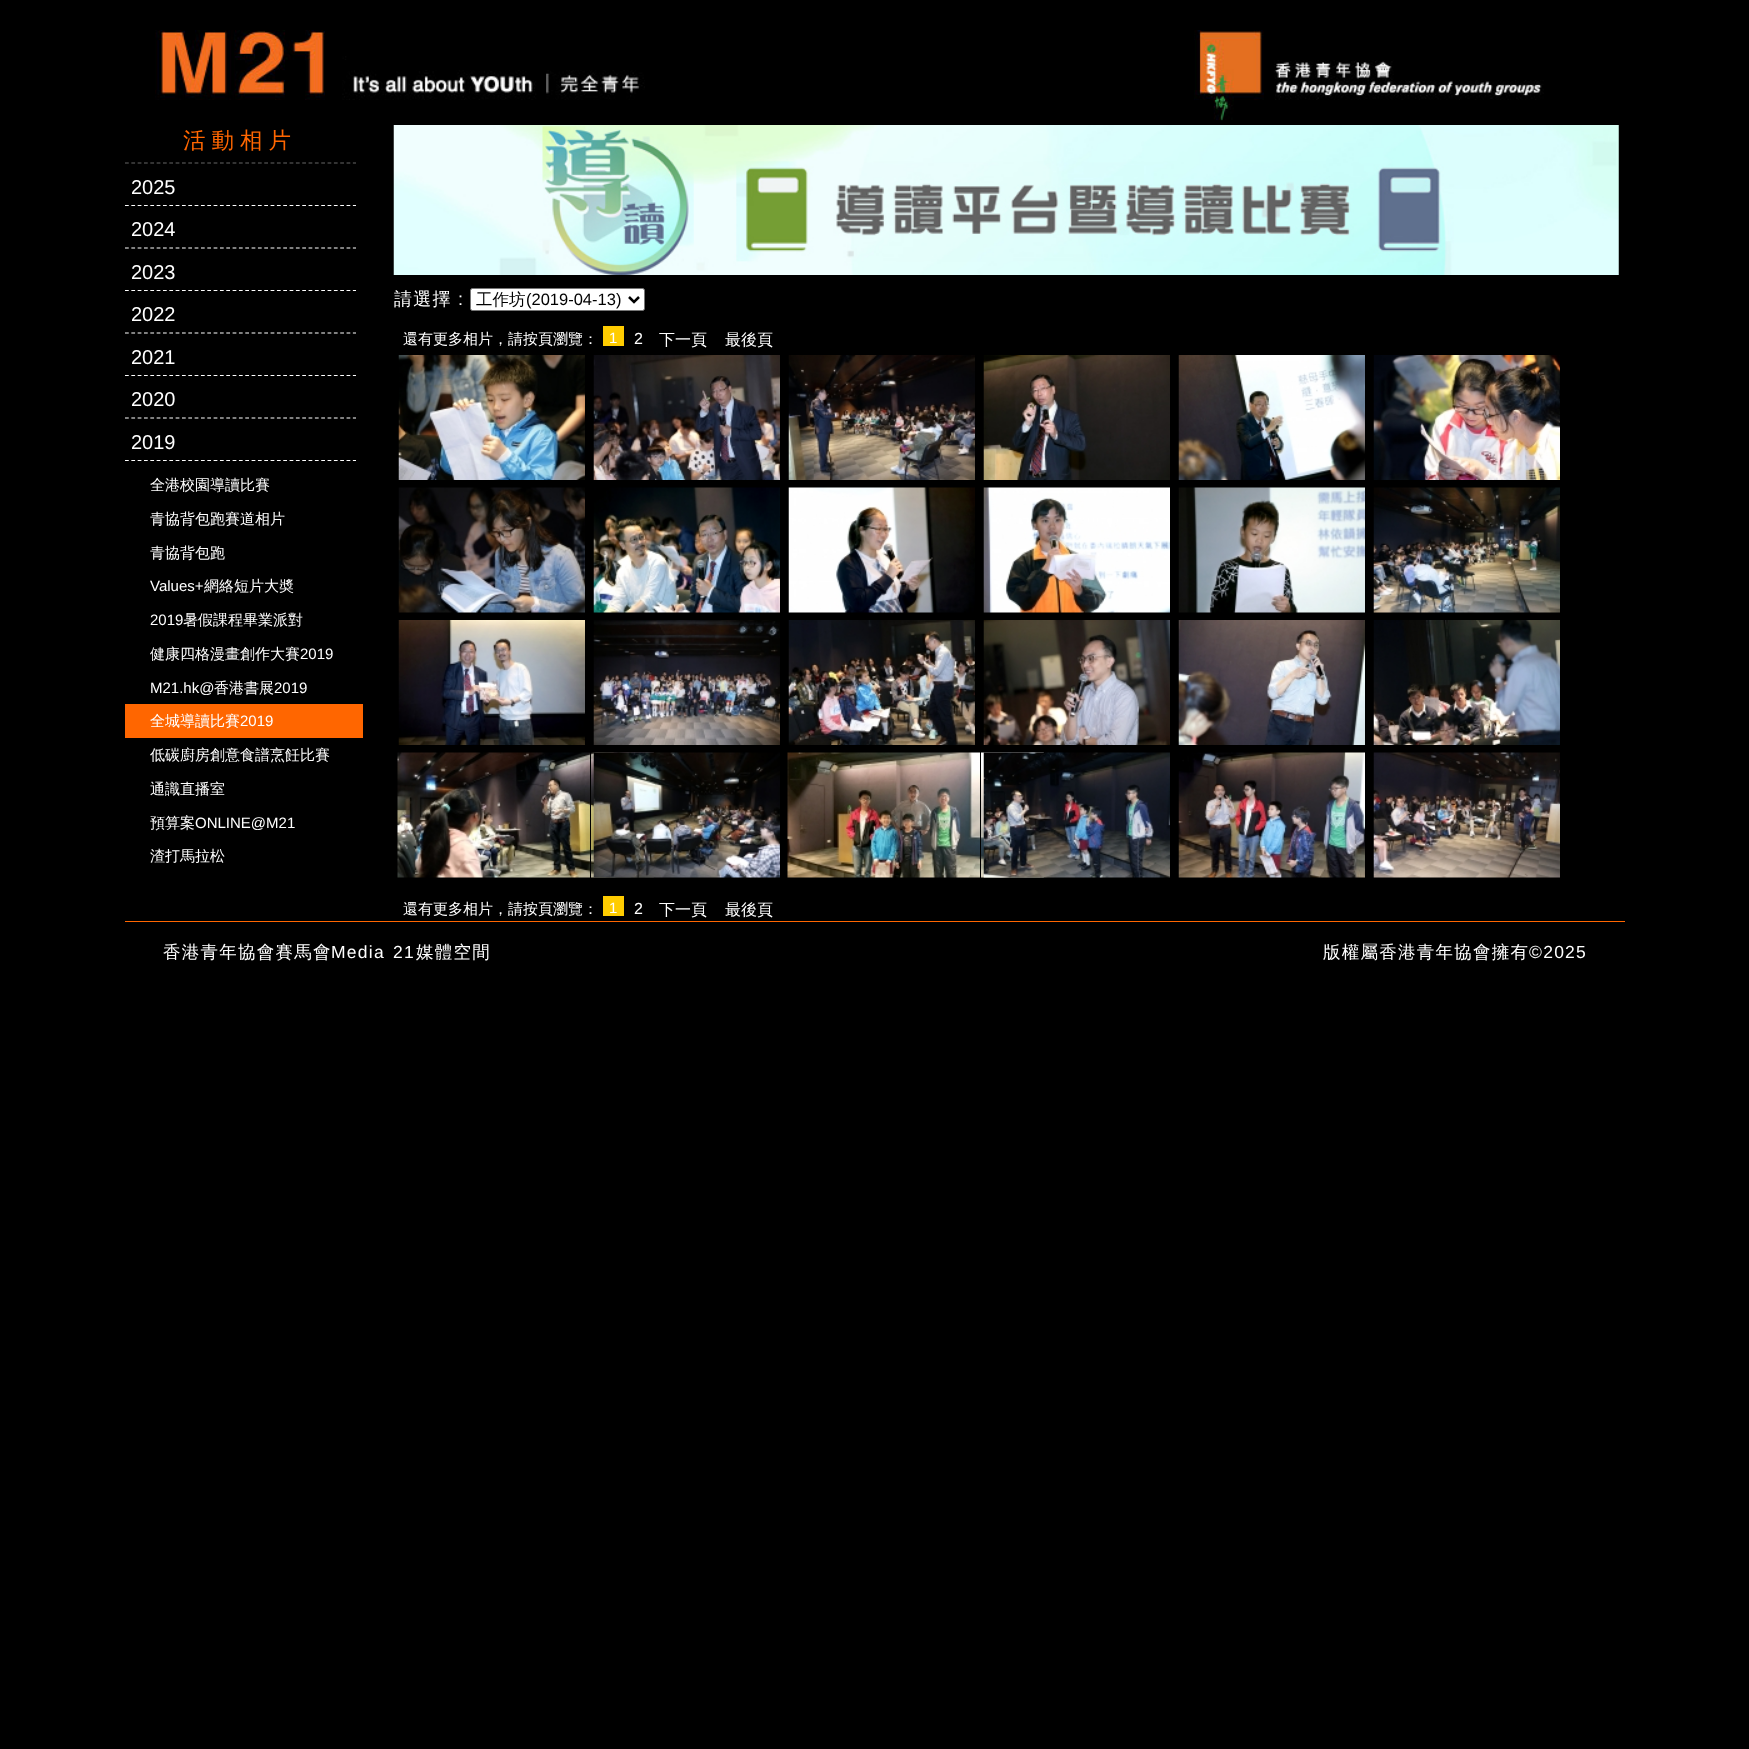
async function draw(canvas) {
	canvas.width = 1749;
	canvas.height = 1749;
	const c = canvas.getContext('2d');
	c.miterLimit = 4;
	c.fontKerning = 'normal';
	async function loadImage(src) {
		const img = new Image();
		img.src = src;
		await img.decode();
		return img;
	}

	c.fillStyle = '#000';
	c.fillRect(0, 0, 1749, 1749);
	c.drawImage(await loadImage('img1.png'), 155, 30, 170, 70);
	c.drawImage(await loadImage('img2.png'), 342, 56, 303, 44);
	c.drawImage(await loadImage('img3.png'), 1194, 30, 350, 91);
	c.beginPath();
	c.moveTo(125, 163);
	c.lineTo(356, 163);
	c.strokeStyle = '#666';
	c.lineWidth = 1.2;
	c.setLineDash([3.75, 2.58]);
	c.stroke();
	c.letterSpacing = '6px';
	c.font = '500 22.5px WenQuanYi Zen Hei';
	c.fillStyle = '#f60';
	c.fillText('活動相片', 183, 148);
	c.beginPath();
	c.moveTo(125, 205.5);
	c.lineTo(356, 205.5);
	c.strokeStyle = '#fff';
	c.stroke();
	c.letterSpacing = '0px';
	c.font = '20px Liberation Sans';
	c.fillStyle = '#fff';
	c.fillText('2025', 131, 194);
	c.beginPath();
	c.moveTo(125, 248);
	c.lineTo(356, 248);
	c.stroke();
	c.fillText('2024', 131, 236);
	c.beginPath();
	c.moveTo(125, 290.5);
	c.lineTo(356, 290.5);
	c.stroke();
	c.fillText('2023', 131, 279);
	c.beginPath();
	c.moveTo(125, 333);
	c.lineTo(356, 333);
	c.stroke();
	c.fillText('2022', 131, 321);
	c.beginPath();
	c.moveTo(125, 375.5);
	c.lineTo(356, 375.5);
	c.stroke();
	c.fillText('2021', 131, 364);
	c.beginPath();
	c.moveTo(125, 418);
	c.lineTo(356, 418);
	c.stroke();
	c.fillText('2020', 131, 406);
	c.beginPath();
	c.moveTo(125, 460.5);
	c.lineTo(356, 460.5);
	c.stroke();
	c.fillText('2019', 131, 449);
	c.font = '500 15px WenQuanYi Zen Hei';
	for (const [text, x, y] of [
		['全港校園導讀比賽', 150, 490],
		['青協背包跑賽道相片', 150, 524],
		['青協背包跑', 150, 558],
	]) {
		c.fillText(text, x, y);
	}
	c.font = '15px Liberation Sans';
	c.fillText('Values+', 150, 591);
	c.font = '500 15px WenQuanYi Zen Hei';
	c.fillText('網絡短片大奬', 204, 591);
	c.font = '15px Liberation Sans';
	c.fillText('2019', 150, 625);
	c.font = '500 15px WenQuanYi Zen Hei';
	c.fillText('暑假課程畢業派對', 183, 625);
	c.fillText('健康四格漫畫創作大賽', 150, 659);
	c.font = '15px Liberation Sans';
	c.fillText('2019', 300, 659);
	c.fillText('M21.hk@', 150, 693);
	c.font = '500 15px WenQuanYi Zen Hei';
	c.fillText('香港書展', 214, 693);
	c.font = '15px Liberation Sans';
	c.fillText('2019', 274, 693);
	c.fillStyle = '#f60';
	c.fillRect(125, 704, 238, 34);
	c.font = '500 15px WenQuanYi Zen Hei';
	c.fillStyle = '#fff';
	c.fillText('全城導讀比賽', 150, 726);
	c.font = '15px Liberation Sans';
	c.fillText('2019', 240, 726);
	c.font = '500 15px WenQuanYi Zen Hei';
	for (const [text, x, y] of [
		['低碳廚房創意食譜烹飪比賽', 150, 760],
		['通識直播室', 150, 794],
		['預算案', 150, 828],
	]) {
		c.fillText(text, x, y);
	}
	c.font = '15px Liberation Sans';
	c.fillText('ONLINE@M21', 195, 828);
	c.font = '500 15px WenQuanYi Zen Hei';
	c.fillText('渣打馬拉松', 150, 861);
	c.drawImage(await loadImage('img4.png'), 393, 125, 1226, 150);
	c.letterSpacing = '1.25px';
	c.font = '500 18px WenQuanYi Zen Hei';
	c.fillText('請選擇', 394, 305);
	c.font = '18px Liberation Sans';
	c.fillText(':', 458, 305);
	c.beginPath();
	c.roundRect(470.5, 288.5, 174, 22, 2);
	c.fill();
	c.strokeStyle = '#767676';
	c.lineWidth = 1;
	c.setLineDash([]);
	c.stroke();
	c.beginPath();
	c.moveTo(629, 297);
	c.lineTo(634, 302);
	c.lineTo(639, 297);
	c.strokeStyle = '#000';
	c.lineWidth = 2.5;
	c.stroke();
	c.letterSpacing = '0px';
	c.font = '500 16.5px WenQuanYi Zen Hei';
	c.fillStyle = '#000';
	c.fillText('工作坊', 476, 305);
	c.font = '16.5px Liberation Sans';
	c.fillText('(2019-04-13)', 526, 305);
	c.font = '500 15px WenQuanYi Zen Hei';
	c.fillStyle = '#fff';
	c.fillText('還有更多相片，請按頁瀏覽：', 403, 344);
	c.fillStyle = '#fc0';
	c.fillRect(603, 326, 21, 20);
	c.font = '15px Liberation Sans';
	c.fillStyle = '#fff';
	c.fillText('1', 609, 343);
	c.font = '16px Liberation Sans';
	c.fillText('2', 634, 344);
	c.font = '500 16px WenQuanYi Zen Hei';
	c.fillText('下一頁', 659, 345);
	c.fillText('最後頁', 725, 345);
	c.drawImage(await loadImage('img5.png'), 398, 355, 187, 125);
	c.drawImage(await loadImage('img6.png'), 593, 355, 187, 125);
	c.drawImage(await loadImage('img7.png'), 788, 355, 187, 125);
	c.drawImage(await loadImage('img8.png'), 983, 355, 187, 125);
	c.drawImage(await loadImage('img9.png'), 1178, 355, 187, 125);
	c.drawImage(await loadImage('img10.png'), 1373, 355, 187, 125);
	c.drawImage(await loadImage('img11.png'), 398, 487, 187, 126);
	c.drawImage(await loadImage('img12.png'), 593, 487, 187, 126);
	c.drawImage(await loadImage('img13.png'), 788, 487, 187, 126);
	c.drawImage(await loadImage('img14.png'), 983, 487, 187, 126);
	c.drawImage(await loadImage('img15.png'), 1178, 487, 187, 126);
	c.drawImage(await loadImage('img16.png'), 1373, 487, 187, 126);
	c.drawImage(await loadImage('img17.png'), 398, 620, 187, 125);
	c.drawImage(await loadImage('img18.png'), 593, 620, 187, 125);
	c.drawImage(await loadImage('img19.png'), 788, 620, 187, 125);
	c.drawImage(await loadImage('img20.png'), 983, 620, 187, 125);
	c.drawImage(await loadImage('img21.png'), 1178, 620, 187, 125);
	c.drawImage(await loadImage('img22.png'), 1373, 620, 187, 125);
	c.drawImage(await loadImage('img23.png'), 397, 752, 257, 126);
	c.lineWidth = 1;
	c.strokeRect(590.5, 750.5, 192, 129);
	c.drawImage(await loadImage('img24.png'), 593, 752, 187, 126);
	c.drawImage(await loadImage('img25.png'), 787, 752, 257, 126);
	c.strokeRect(980.5, 750.5, 192, 129);
	c.drawImage(await loadImage('img26.png'), 983, 752, 187, 126);
	c.drawImage(await loadImage('img27.png'), 1178, 752, 187, 126);
	c.drawImage(await loadImage('img28.png'), 1373, 752, 187, 126);
	c.font = '500 15px WenQuanYi Zen Hei';
	c.fillText('還有更多相片，請按頁瀏覽：', 403, 914);
	c.fillStyle = '#fc0';
	c.fillRect(603, 896, 21, 20);
	c.font = '15px Liberation Sans';
	c.fillStyle = '#fff';
	c.fillText('1', 609, 913);
	c.font = '16px Liberation Sans';
	c.fillText('2', 634, 914);
	c.font = '500 16px WenQuanYi Zen Hei';
	c.fillText('下一頁', 659, 915);
	c.fillText('最後頁', 725, 915);
	c.fillStyle = '#f60';
	c.fillRect(125, 921, 1500, 1);
	c.letterSpacing = '1.25px';
	c.font = '500 17.5px WenQuanYi Zen Hei';
	c.fillStyle = '#fff';
	c.fillText('香港青年協會賽馬會', 163, 958);
	c.wordSpacing = '2px';
	c.font = '17.5px Liberation Sans';
	c.fillText('Media 21', 331, 958);
	c.wordSpacing = '0px';
	c.font = '500 17.5px WenQuanYi Zen Hei';
	c.fillText('媒體空間', 416, 958);
	c.fillText('版權屬香港青年協會擁有', 1323, 958);
	c.font = '17.5px Liberation Sans';
	c.fillText('©2025', 1529, 958);
}

draw(document.querySelector('canvas'));
